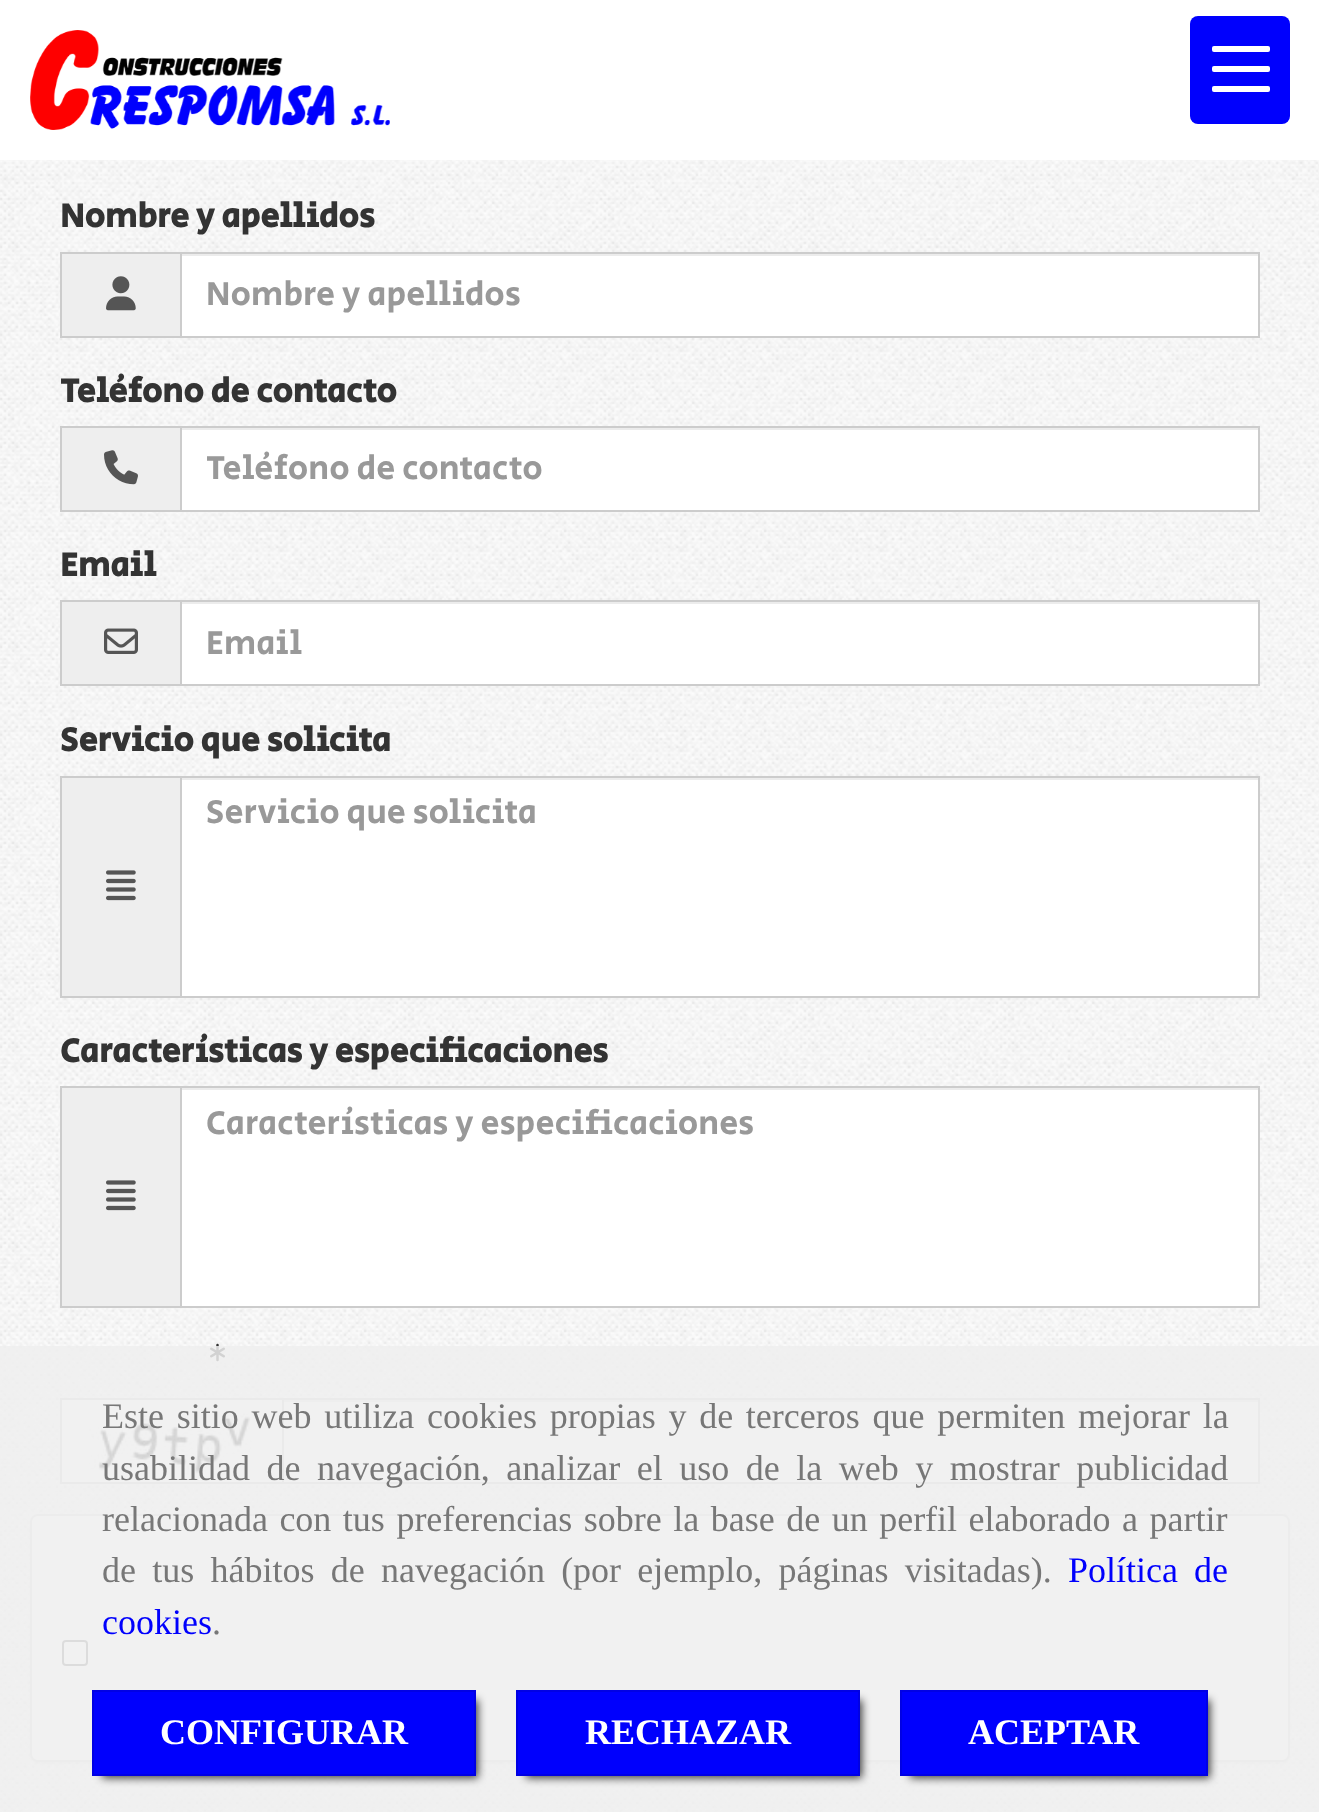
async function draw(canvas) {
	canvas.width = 1319;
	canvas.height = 1812;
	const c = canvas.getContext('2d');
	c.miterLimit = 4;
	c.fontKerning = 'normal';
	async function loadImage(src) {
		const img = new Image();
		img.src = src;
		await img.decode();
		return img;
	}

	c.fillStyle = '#fff';
	c.fillRect(0, 0, 1319, 1812);
	c.drawImage(await loadImage('img1.png'), 0, 160, 1319, 1652);
	c.drawImage(await loadImage('img2.png'), 30, 30, 360, 100);
	c.fillStyle = '#0000fd';
	c.beginPath();
	c.roundRect(1190, 16, 100, 108, 8);
	c.fill();
	c.fillStyle = '#fff';
	c.beginPath();
	c.roundRect(1212, 66, 58, 6, 2);
	c.fill();
	c.beginPath();
	c.roundRect(1212, 46, 58, 6, 2);
	c.fill();
	c.beginPath();
	c.roundRect(1212, 86, 58, 6, 2);
	c.fill();
	c.font = 'bold 34px Secular One';
	c.fillStyle = '#333';
	c.fillText('Nombre y apellidos', 60, 227);
	for (const [x, y, w, h, color] of [
		[62, 254, 118, 82, '#eee'],
		[60, 252, 120, 2, '#ccc'],
		[60, 336, 120, 2, '#ccc'],
		[60, 252, 2, 86, '#ccc'],
	]) {
		c.fillStyle = color;
		c.fillRect(x, y, w, h);
	}
	c.drawImage(await loadImage('img3.png'), 106, 276, 30, 35);
	c.fillStyle = '#fff';
	c.fillRect(182, 256, 1076, 80);
	c.fillStyle = '#ececec';
	c.fillRect(182, 254, 1076, 2);
	c.strokeStyle = '#ccc';
	c.lineWidth = 2;
	c.strokeRect(181, 253, 1078, 84);
	c.font = '34px Secular One';
	c.fillStyle = '#999';
	c.fillText('Nombre y apellidos', 206, 305);
	c.font = 'bold 34px Secular One';
	c.fillStyle = '#333';
	c.fillText('Teléfono de contacto', 60, 402);
	for (const [x, y, w, h, color] of [
		[62, 428, 118, 82, '#eee'],
		[60, 426, 120, 2, '#ccc'],
		[60, 510, 120, 2, '#ccc'],
		[60, 426, 2, 86, '#ccc'],
	]) {
		c.fillStyle = color;
		c.fillRect(x, y, w, h);
	}
	c.drawImage(await loadImage('img4.png'), 104, 450, 34, 35);
	c.fillStyle = '#fff';
	c.fillRect(182, 430, 1076, 80);
	c.fillStyle = '#ececec';
	c.fillRect(182, 428, 1076, 2);
	c.strokeRect(181, 427, 1078, 84);
	c.font = '34px Secular One';
	c.fillStyle = '#999';
	c.fillText('Teléfono de contacto', 206, 479);
	c.font = 'bold 34px Secular One';
	c.fillStyle = '#333';
	c.fillText('Email', 60, 576);
	for (const [x, y, w, h, color] of [
		[62, 602, 118, 82, '#eee'],
		[60, 600, 120, 2, '#ccc'],
		[60, 684, 120, 2, '#ccc'],
		[60, 600, 2, 86, '#ccc'],
	]) {
		c.fillStyle = color;
		c.fillRect(x, y, w, h);
	}
	c.drawImage(await loadImage('img5.png'), 104, 628, 34, 26);
	c.fillStyle = '#fff';
	c.fillRect(182, 604, 1076, 80);
	c.fillStyle = '#ececec';
	c.fillRect(182, 602, 1076, 2);
	c.strokeRect(181, 601, 1078, 84);
	c.font = '34px Secular One';
	c.fillStyle = '#999';
	c.fillText('Email', 206, 654);
	c.font = 'bold 34px Secular One';
	c.fillStyle = '#333';
	c.fillText('Servicio que solicita', 60, 751);
	for (const [x, y, w, h, color] of [
		[62, 778, 118, 218, '#eee'],
		[60, 776, 120, 2, '#ccc'],
		[60, 996, 120, 2, '#ccc'],
		[60, 776, 2, 222, '#ccc'],
	]) {
		c.fillStyle = color;
		c.fillRect(x, y, w, h);
	}
	c.drawImage(await loadImage('img6.png'), 106, 870, 30, 31);
	c.fillStyle = '#fff';
	c.fillRect(182, 780, 1076, 216);
	c.fillStyle = '#ececec';
	c.fillRect(182, 778, 1076, 2);
	c.strokeRect(181, 777, 1078, 220);
	c.font = '34px Secular One';
	c.fillStyle = '#999';
	c.fillText('Servicio que solicita', 206, 823);
	c.font = 'bold 34px Secular One';
	c.fillStyle = '#333';
	c.fillText('Características y especificaciones', 60, 1062);
	for (const [x, y, w, h, color] of [
		[62, 1088, 118, 218, '#eee'],
		[60, 1086, 120, 2, '#ccc'],
		[60, 1306, 120, 2, '#ccc'],
		[60, 1086, 2, 222, '#ccc'],
	]) {
		c.fillStyle = color;
		c.fillRect(x, y, w, h);
	}
	c.drawImage(await loadImage('img6.png'), 106, 1180, 30, 31);
	c.fillStyle = '#fff';
	c.fillRect(182, 1090, 1076, 216);
	c.fillStyle = '#ececec';
	c.fillRect(182, 1088, 1076, 2);
	c.strokeRect(181, 1087, 1078, 220);
	c.font = '34px Secular One';
	c.fillStyle = '#999';
	c.fillText('Características y especificaciones', 206, 1134);
	c.drawImage(await loadImage('img7.png'), 210, 1343, 15, 19);
	for (const [x, y, w, h, color] of [
		[60, 1398, 222, 2, '#ccc'],
		[60, 1482, 222, 2, '#ccc'],
		[60, 1398, 2, 86, '#ccc'],
	]) {
		c.fillStyle = color;
		c.fillRect(x, y, w, h);
	}
	c.drawImage(await loadImage('img8.png'), 62, 1400, 220, 82);
	c.fillStyle = '#fff';
	c.fillRect(284, 1402, 974, 80);
	c.fillStyle = '#ececec';
	c.fillRect(284, 1400, 974, 2);
	c.strokeRect(283, 1399, 976, 84);
	c.fillStyle = '#0000000d';
	c.filter = 'blur(1px)';
	c.beginPath();
	c.roundRect(30, 1516, 1260, 248, 8);
	c.fill();
	c.filter = 'none';
	c.fillStyle = '#fff';
	c.beginPath();
	c.roundRect(31, 1515, 1258, 246, 7);
	c.fill();
	c.strokeStyle = '#ddd';
	c.stroke();
	c.beginPath();
	c.roundRect(63, 1641, 24, 24, 3);
	c.strokeStyle = '#767676';
	c.stroke();
	c.fillStyle = '#eeeeeed9';
	c.fillRect(0, 1346, 1319, 466);
	c.wordSpacing = '3.75px';
	c.font = '36px Liberation Serif';
	c.fillStyle = '#777';
	c.fillText('Este sitio web utiliza cookies propias y de terceros que permiten mejorar la', 102, 1428);
	c.wordSpacing = '7.5px';
	c.fillText('usabilidad de navegación, analizar el uso de la web y mostrar publicidad', 102, 1480);
	c.wordSpacing = '2.5px';
	c.fillText('relacionada con tus preferencias sobre la base de un perfil elaborado a partir', 102, 1531);
	c.wordSpacing = '7.25px';
	c.fillText('de tus hábitos de navegación (por ejemplo, páginas visitadas).', 102, 1582);
	c.wordSpacing = '7px';
	c.fillStyle = '#0000fd';
	c.fillText('Política de', 1068, 1582);
	c.wordSpacing = '0px';
	c.fillText('cookies', 102, 1634);
	c.fillStyle = '#777';
	c.fillText('.', 212, 1634);
	c.fillStyle = '#000000bf';
	c.filter = 'blur(4px)';
	c.beginPath();
	c.rect(102, 1700, 376, 78);
	c.fill();
	c.filter = 'none';
	c.fillStyle = '#0000fd';
	c.beginPath();
	c.rect(93, 1691, 382, 84);
	c.fill();
	c.strokeStyle = '#0000e4';
	c.stroke();
	c.font = 'bold 36px Liberation Serif';
	c.fillStyle = '#fff';
	c.fillText('CONFIGURAR', 160, 1744);
	c.fillStyle = '#000000bf';
	c.filter = 'blur(4px)';
	c.beginPath();
	c.rect(526, 1700, 336, 78);
	c.fill();
	c.filter = 'none';
	c.fillStyle = '#0000fd';
	c.beginPath();
	c.rect(517, 1691, 342, 84);
	c.fill();
	c.stroke();
	c.fillStyle = '#fff';
	c.fillText('RECHAZAR', 585, 1744);
	c.fillStyle = '#000000bf';
	c.filter = 'blur(4px)';
	c.beginPath();
	c.rect(910, 1700, 300, 78);
	c.fill();
	c.filter = 'none';
	c.fillStyle = '#0000fd';
	c.beginPath();
	c.rect(901, 1691, 306, 84);
	c.fill();
	c.stroke();
	c.fillStyle = '#fff';
	c.fillText('ACEPTAR', 968, 1744);
}

draw(document.querySelector('canvas'));
